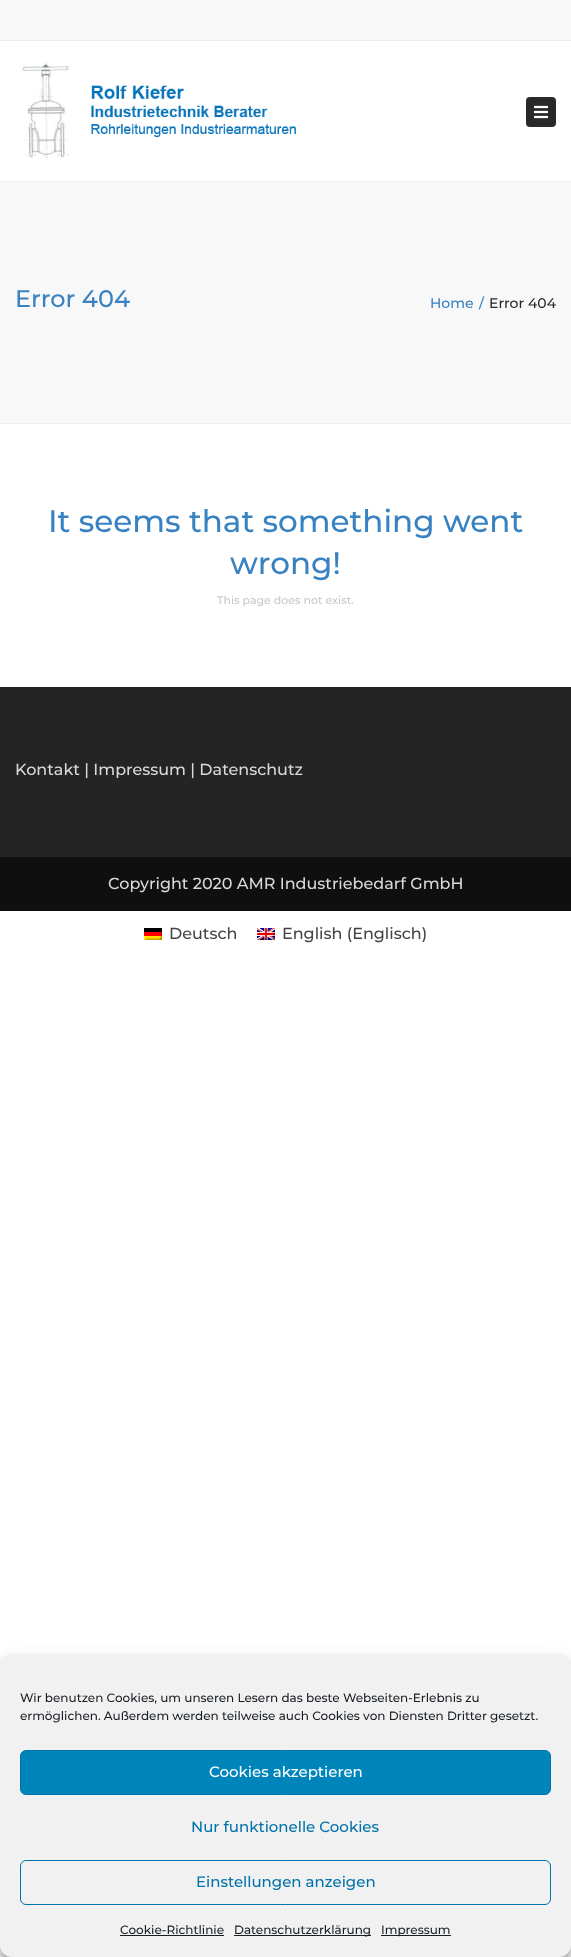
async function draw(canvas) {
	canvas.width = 571;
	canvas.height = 1957;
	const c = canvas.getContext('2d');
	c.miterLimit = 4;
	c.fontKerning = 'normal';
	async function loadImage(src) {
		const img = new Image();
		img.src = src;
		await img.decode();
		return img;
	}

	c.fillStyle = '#fff';
	c.fillRect(0, 0, 571, 1957);
	c.fillStyle = '#f9f9f9';
	c.fillRect(0, 0, 571, 40);
	c.fillStyle = '#ededed';
	c.fillRect(0, 40, 571, 1);
	c.drawImage(await loadImage('img1.png'), 20, 62, 277, 99);
	c.fillStyle = '#f2f2f2';
	c.fillRect(0, 181, 571, 1);
	c.fillStyle = '#292929';
	c.beginPath();
	c.roundRect(526, 97, 30, 30, 4);
	c.fill();
	c.drawImage(await loadImage('img2.png'), 534, 105, 14, 14);
	c.fillStyle = '#f8f8f8';
	c.fillRect(0, 182, 571, 241);
	c.fillStyle = '#ededed';
	c.fillRect(0, 423, 571, 1);
	c.font = '100 24px Montserrat';
	c.fillStyle = '#3882c2';
	c.fillText('Error 404', 15, 307);
	c.font = '100 14px Montserrat';
	c.fillText('Home', 430, 308);
	c.fillText('/', 479, 308);
	c.fillStyle = '#292929';
	c.fillText('Error 404', 489, 308);
	c.font = '100 31px Montserrat';
	c.fillStyle = '#3882c2';
	c.fillText('It seems that something went', 48, 532);
	c.fillText('wrong!', 230, 574);
	c.font = '100 11px Montserrat';
	c.fillStyle = '#c7c7c7';
	c.fillText('This page does not exist.', 217, 604);
	c.fillStyle = '#242424';
	c.fillRect(0, 687, 571, 170);
	c.font = '100 16px Montserrat';
	c.fillStyle = '#d9d9d9';
	c.fillText('Kontakt | Impressum | Datenschutz', 15, 775);
	c.fillStyle = '#0f0f0f';
	c.fillRect(0, 857, 571, 54);
	c.fillStyle = '#d9d9d9';
	c.fillText('Copyright 2020 AMR Industriebedarf GmbH', 108, 889);
	c.drawImage(await loadImage('img3.png'), 144, 928, 18, 12);
	c.fillStyle = '#444';
	c.fillText('Deutsch', 169, 939);
	c.drawImage(await loadImage('img4.png'), 257, 928, 18, 12);
	c.fillText('English (Englisch)', 282, 939);
	c.fillStyle = '#0000003b';
	c.filter = 'blur(3px)';
	c.beginPath();
	c.roundRect(0, 1660, 571, 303, 12);
	c.fill();
	c.filter = 'none';
	c.fillStyle = '#00000030';
	c.filter = 'blur(10px)';
	c.beginPath();
	c.roundRect(0, 1664, 571, 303, 12);
	c.fill();
	c.filter = 'none';
	c.fillStyle = '#f1f1f1';
	c.beginPath();
	c.roundRect(0, 1654, 571, 303, 12);
	c.fill();
	c.font = '100 12px Montserrat';
	c.fillStyle = '#191e23';
	c.fillText('Wir benutzen Cookies, um unseren Lesern das beste Webseiten-Erlebnis zu', 20, 1702);
	c.fillText('ermöglichen. Außerdem werden teilweise auch Cookies von Diensten Dritter gesetzt.', 20, 1720);
	c.fillStyle = '#0085ba';
	c.beginPath();
	c.roundRect(20.5, 1750.5, 530, 44, 5.5);
	c.fill();
	c.strokeStyle = '#0073aa';
	c.stroke();
	c.font = '100 15px Montserrat';
	c.fillStyle = '#fff';
	c.fillText('Cookies akzeptieren', 209, 1777);
	c.fillStyle = '#0073aa';
	c.fillText('Nur funktionelle Cookies', 191, 1832);
	c.beginPath();
	c.roundRect(20.5, 1860.5, 530, 44, 5.5);
	c.stroke();
	c.fillText('Einstellungen anzeigen', 196, 1887);
	c.font = '100 12px Montserrat';
	c.fillStyle = '#191e23';
	c.fillText('Cookie-Richtlinie', 120, 1934);
	c.fillRect(120, 1935, 104, 1);
	c.fillRect(234, 1935, 137, 1);
	c.fillText('Datenschutzerklärung', 234, 1934);
	c.fillRect(381, 1935, 70, 1);
	c.fillText('Impressum', 381, 1934);
}

draw(document.querySelector('canvas'));
